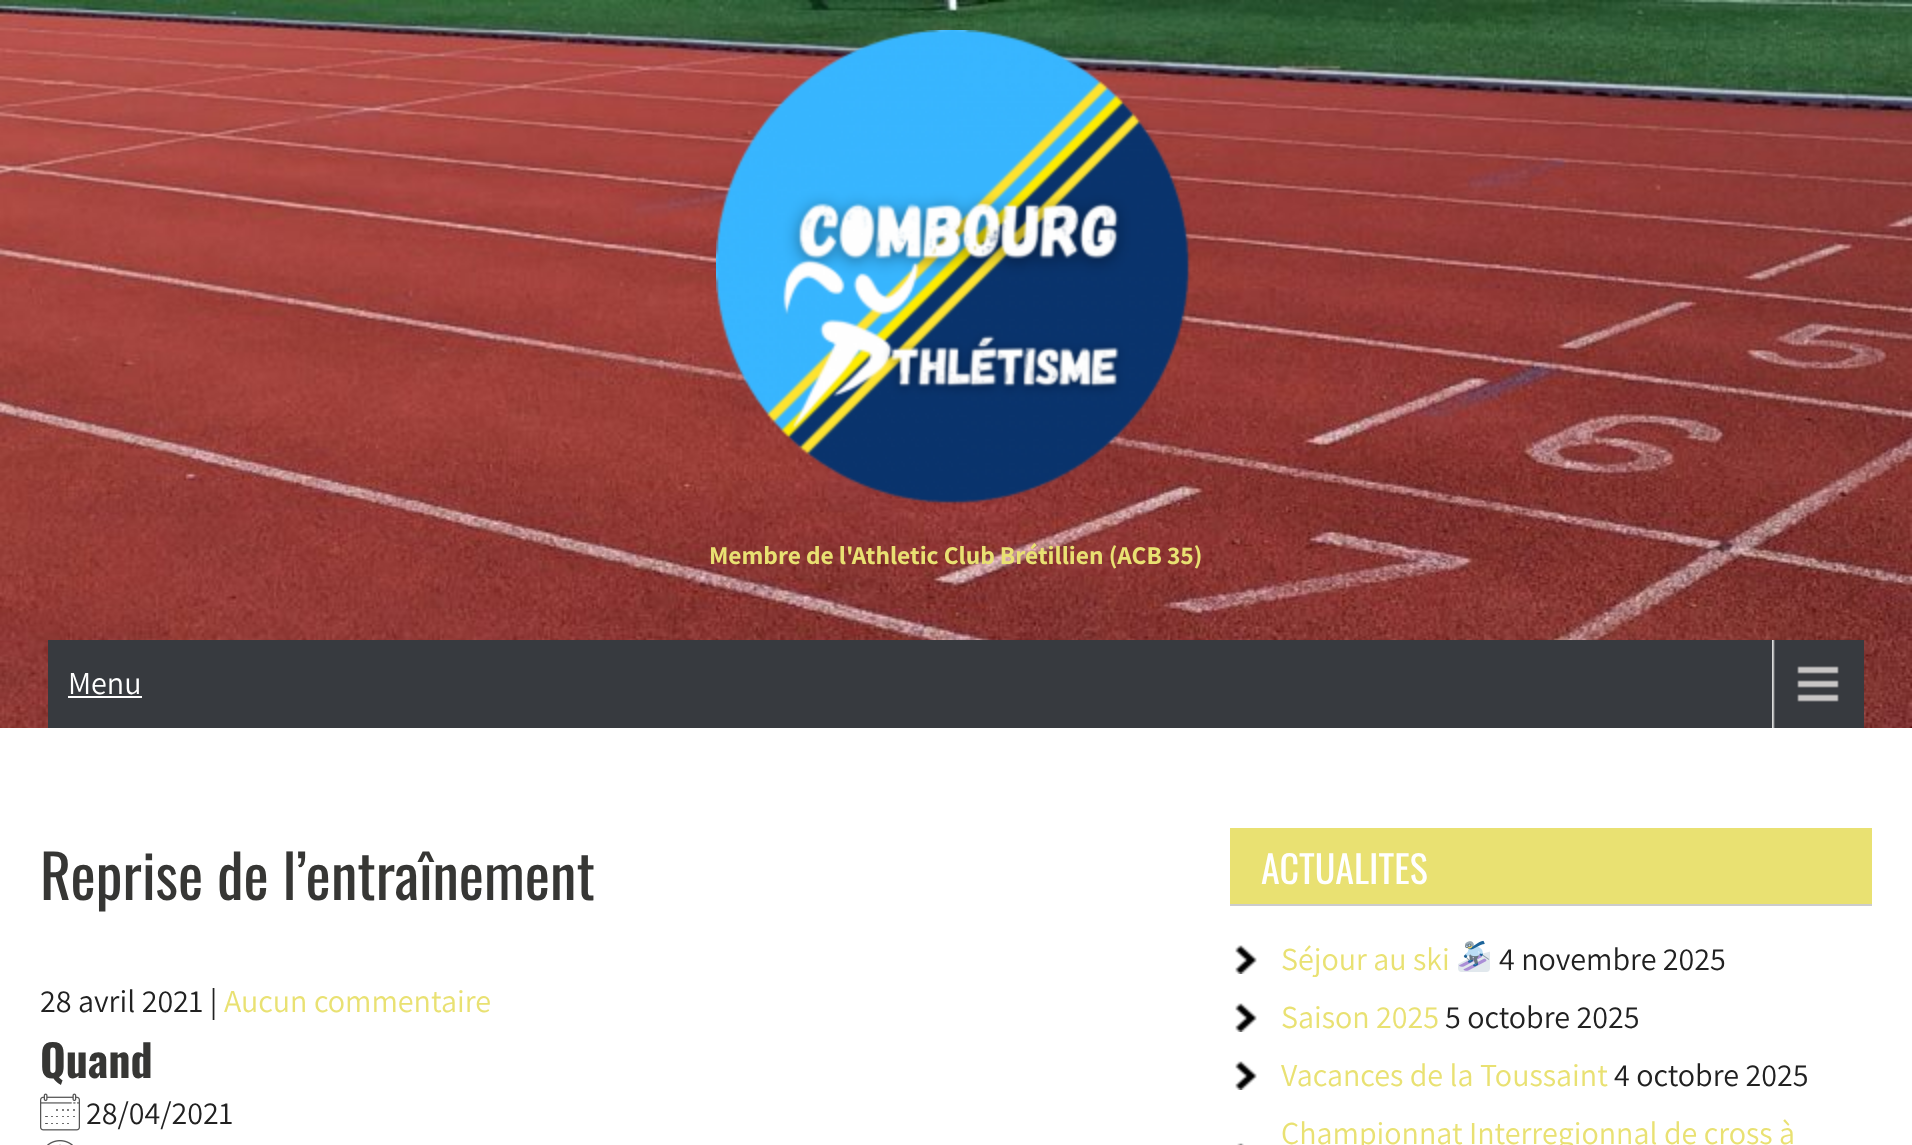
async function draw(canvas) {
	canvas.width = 1912;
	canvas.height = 1145;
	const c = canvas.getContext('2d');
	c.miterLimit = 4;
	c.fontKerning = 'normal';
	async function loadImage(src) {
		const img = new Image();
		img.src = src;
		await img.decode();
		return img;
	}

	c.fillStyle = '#fff';
	c.fillRect(0, 0, 1912, 1145);
	c.drawImage(await loadImage('img1.png'), 0, 0, 1912, 728);
	c.drawImage(await loadImage('img2.png'), 716, 30, 475, 475);
	c.font = 'bold 25.6px Assistant';
	c.fillStyle = '#e9e172';
	c.fillText('Membre de l\'Athletic Club Brétillien (ACB 35)', 709, 564);
	c.fillStyle = '#373a3f';
	c.fillRect(48, 640, 1816, 88);
	c.drawImage(await loadImage('img3.png'), 1772, 640, 67, 88);
	c.font = '32px Assistant';
	c.fillStyle = '#fff';
	c.fillText('Menu', 68, 694);
	c.fillRect(68, 696, 74, 2);
	c.font = '60px Oswald';
	c.fillStyle = '#363634';
	c.fillText('Reprise de l’entraînement', 40, 900);
	c.font = '32px Assistant';
	c.fillStyle = '#212121';
	c.fillText('28 avril 2021 |', 40, 1012);
	c.fillStyle = '#e9e172';
	c.fillText('Aucun commentaire', 224, 1012);
	c.font = 'bold 44px Oswald';
	c.fillStyle = '#363634';
	c.fillText('Quand', 40, 1078);
	c.drawImage(await loadImage('img4.png'), 40, 1093, 40, 38);
	c.font = '32px Assistant';
	c.fillStyle = '#212121';
	c.fillText('28/04/2021', 86, 1124);
	c.drawImage(await loadImage('img5.png'), 47, 1140, 26, 5);
	c.fillStyle = '#e9e172';
	c.fillRect(1230, 828, 642, 76);
	c.fillStyle = '#ccc';
	c.fillRect(1230, 904, 642, 2);
	c.font = '38px Oswald';
	c.fillStyle = '#fff';
	c.fillText('ACTUALITES', 1261, 884);
	c.drawImage(await loadImage('img6.png'), 1235, 945, 22, 29);
	c.font = '32px Assistant';
	c.fillStyle = '#e9e172';
	c.fillText('Séjour au ski', 1281, 970);
	c.drawImage(await loadImage('img7.png'), 1458, 940, 32, 32);
	c.fillStyle = '#212121';
	c.fillText('4 novembre 2025', 1499, 970);
	c.drawImage(await loadImage('img6.png'), 1235, 1003, 22, 29);
	c.fillStyle = '#e9e172';
	c.fillText('Saison 2025', 1281, 1028);
	c.fillStyle = '#212121';
	c.fillText('5 octobre 2025', 1445, 1028);
	c.drawImage(await loadImage('img6.png'), 1235, 1061, 22, 29);
	c.fillStyle = '#e9e172';
	c.fillText('Vacances de la Toussaint', 1281, 1086);
	c.fillStyle = '#212121';
	c.fillText('4 octobre 2025', 1614, 1086);
	c.drawImage(await loadImage('img8.png'), 1237, 1143, 7, 2);
	c.fillStyle = '#e9e172';
	c.fillText('Championnat Interregionnal de cross à', 1281, 1144);
}

draw(document.querySelector('canvas'));
